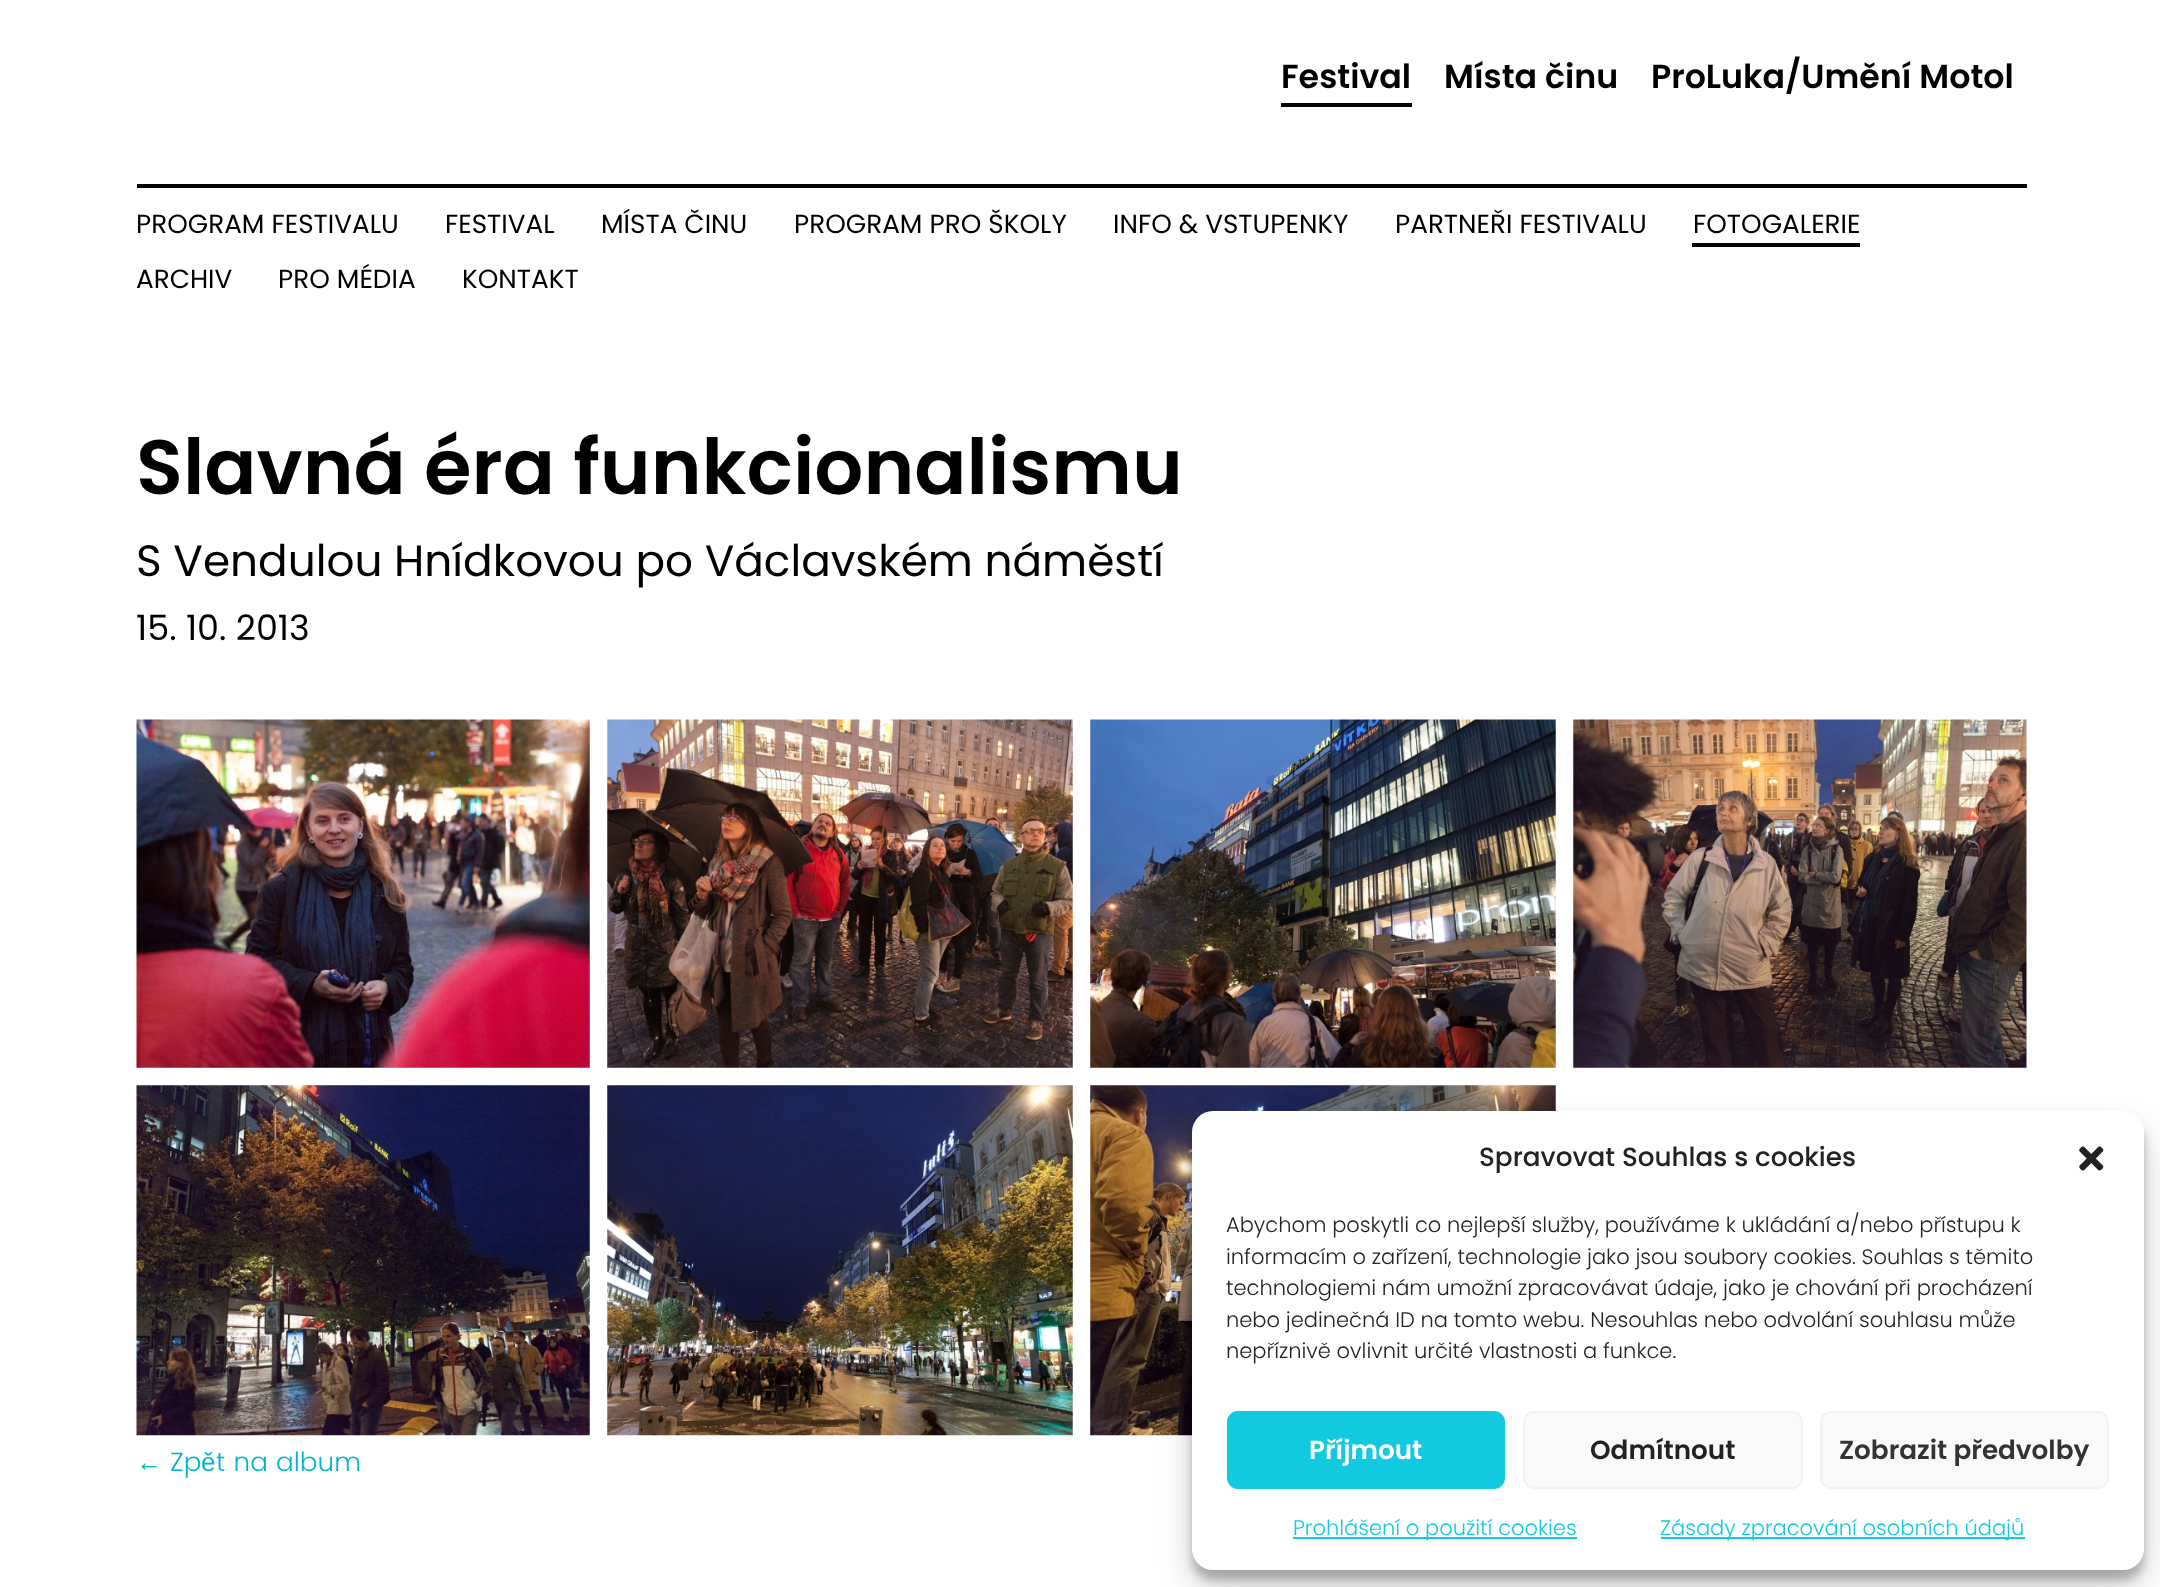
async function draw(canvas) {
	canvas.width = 2160;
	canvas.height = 1587;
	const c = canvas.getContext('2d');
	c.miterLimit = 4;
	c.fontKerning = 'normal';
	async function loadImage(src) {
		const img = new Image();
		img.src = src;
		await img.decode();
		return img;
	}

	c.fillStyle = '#fff';
	c.fillRect(0, 0, 2160, 1587);
	c.fillStyle = '#000';
	c.fillRect(1281, 103, 131, 4);
	c.font = '600 33.25px Poppins';
	for (const [text, x, y] of [
		['Festival', 1281, 88],
		['Místa činu', 1444, 88],
		['ProLuka/Umění Motol', 1651, 88],
	]) {
		c.fillText(text, x, y);
	}
	c.fillRect(137, 184, 1890, 4);
	c.font = '26.25px Poppins';
	for (const [text, x, y] of [
		['PROGRAM FESTIVALU', 136, 233],
		['FESTIVAL', 445, 233],
		['MÍSTA ČINU', 601, 233],
		['PROGRAM PRO ŠKOLY', 794, 233],
		['INFO & VSTUPENKY', 1113, 233],
		['PARTNEŘI FESTIVALU', 1395, 233],
	]) {
		c.fillText(text, x, y);
	}
	c.fillRect(1692, 243, 168, 4);
	for (const [text, x, y] of [
		['FOTOGALERIE', 1693, 233],
		['ARCHIV', 136, 288],
		['PRO MÉDIA', 278, 288],
		['KONTAKT', 462, 288],
	]) {
		c.fillText(text, x, y);
	}
	c.font = '600 77px Poppins';
	c.fillText('Slavná éra funkcionalismu', 136, 494);
	c.font = '43.75px Poppins';
	c.fillText('S Vendulou Hnídkovou po Václavském náměstí', 136, 576);
	c.font = '35px Poppins';
	c.fillText('15. 10. 2013', 136, 640);
	c.drawImage(await loadImage('img1.png'), 136, 719, 454, 349);
	c.drawImage(await loadImage('img2.png'), 607, 719, 466, 349);
	c.drawImage(await loadImage('img3.png'), 1090, 719, 466, 349);
	c.drawImage(await loadImage('img4.png'), 1573, 719, 454, 349);
	c.drawImage(await loadImage('img5.png'), 136, 1085, 454, 351);
	c.drawImage(await loadImage('img6.png'), 607, 1085, 466, 351);
	c.drawImage(await loadImage('img7.png'), 1090, 1085, 466, 351);
	c.font = '26.25px Liberation Sans';
	c.fillStyle = '#00b5cb';
	c.fillText('←', 136, 1471);
	c.font = '300 26.25px Poppins';
	c.fillText('Zp', 170, 1471);
	c.font = '26.25px Liberation Sans';
	c.fillText('ě', 201, 1471);
	c.wordSpacing = '1px';
	c.font = '300 26.25px Poppins';
	c.fillText('t na album', 216, 1471);
	c.fillStyle = '#0000003b';
	c.filter = 'blur(5px)';
	c.beginPath();
	c.roundRect(1192, 1122, 952, 458, 21);
	c.fill();
	c.filter = 'none';
	c.fillStyle = '#00000030';
	c.filter = 'blur(17.5px)';
	c.beginPath();
	c.roundRect(1192, 1129, 952, 458, 21);
	c.fill();
	c.filter = 'none';
	c.fillStyle = '#fff';
	c.beginPath();
	c.roundRect(1192, 1111, 952, 459, 21);
	c.fill();
	c.wordSpacing = '0px';
	c.font = '500 26.25px Poppins';
	c.fillStyle = '#222';
	c.fillText('Spravovat Souhlas s cookies', 1479, 1166);
	c.drawImage(await loadImage('img8.png'), 2079, 1146, 25, 25);
	c.font = '300 21px Poppins';
	for (const [text, x, y] of [
		['Abychom poskytli co nejlepší služby, používáme k ukládání a/nebo přístupu k', 1226, 1232],
		['informacím o zařízení, technologie jako jsou soubory cookies. Souhlas s těmito', 1226, 1264],
		['technologiemi nám umožní zpracovávat údaje, jako je chování při procházení', 1226, 1295],
		['nebo jedinečná ID na tomto webu. Nesouhlas nebo odvolání souhlasu může', 1226, 1327],
		['nepříznivě ovlivnit určité vlastnosti a funkce.', 1226, 1358],
	]) {
		c.fillText(text, x, y);
	}
	c.fillStyle = '#12cae0';
	c.beginPath();
	c.roundRect(1228, 1412, 276, 76, 10);
	c.fill();
	c.strokeStyle = '#12cae0';
	c.lineWidth = 2;
	c.stroke();
	c.font = '600 26.25px Poppins';
	c.fillStyle = '#fff';
	c.fillText('Příjmout', 1309, 1459);
	c.fillStyle = '#f9f9f9';
	c.beginPath();
	c.roundRect(1524, 1412, 278, 76, 10);
	c.fill();
	c.strokeStyle = '#f2f2f2';
	c.stroke();
	c.fillStyle = '#222';
	c.fillText('Odmítnout', 1590, 1459);
	c.fillStyle = '#f9f9f9';
	c.beginPath();
	c.roundRect(1821, 1412, 287, 76, 10);
	c.fill();
	c.stroke();
	c.fillStyle = '#333';
	c.fillText('Zobrazit předvolby', 1839, 1459);
	c.fillStyle = '#12cae0';
	c.fillRect(1293, 1537, 284, 2);
	c.font = '300 21px Poppins';
	c.fillText('Prohlášení o použití cookies', 1293, 1535);
	c.fillRect(1661, 1537, 364, 2);
	c.fillText('Zásady zpracování osobních údajů', 1660, 1535);
}

draw(document.querySelector('canvas'));
